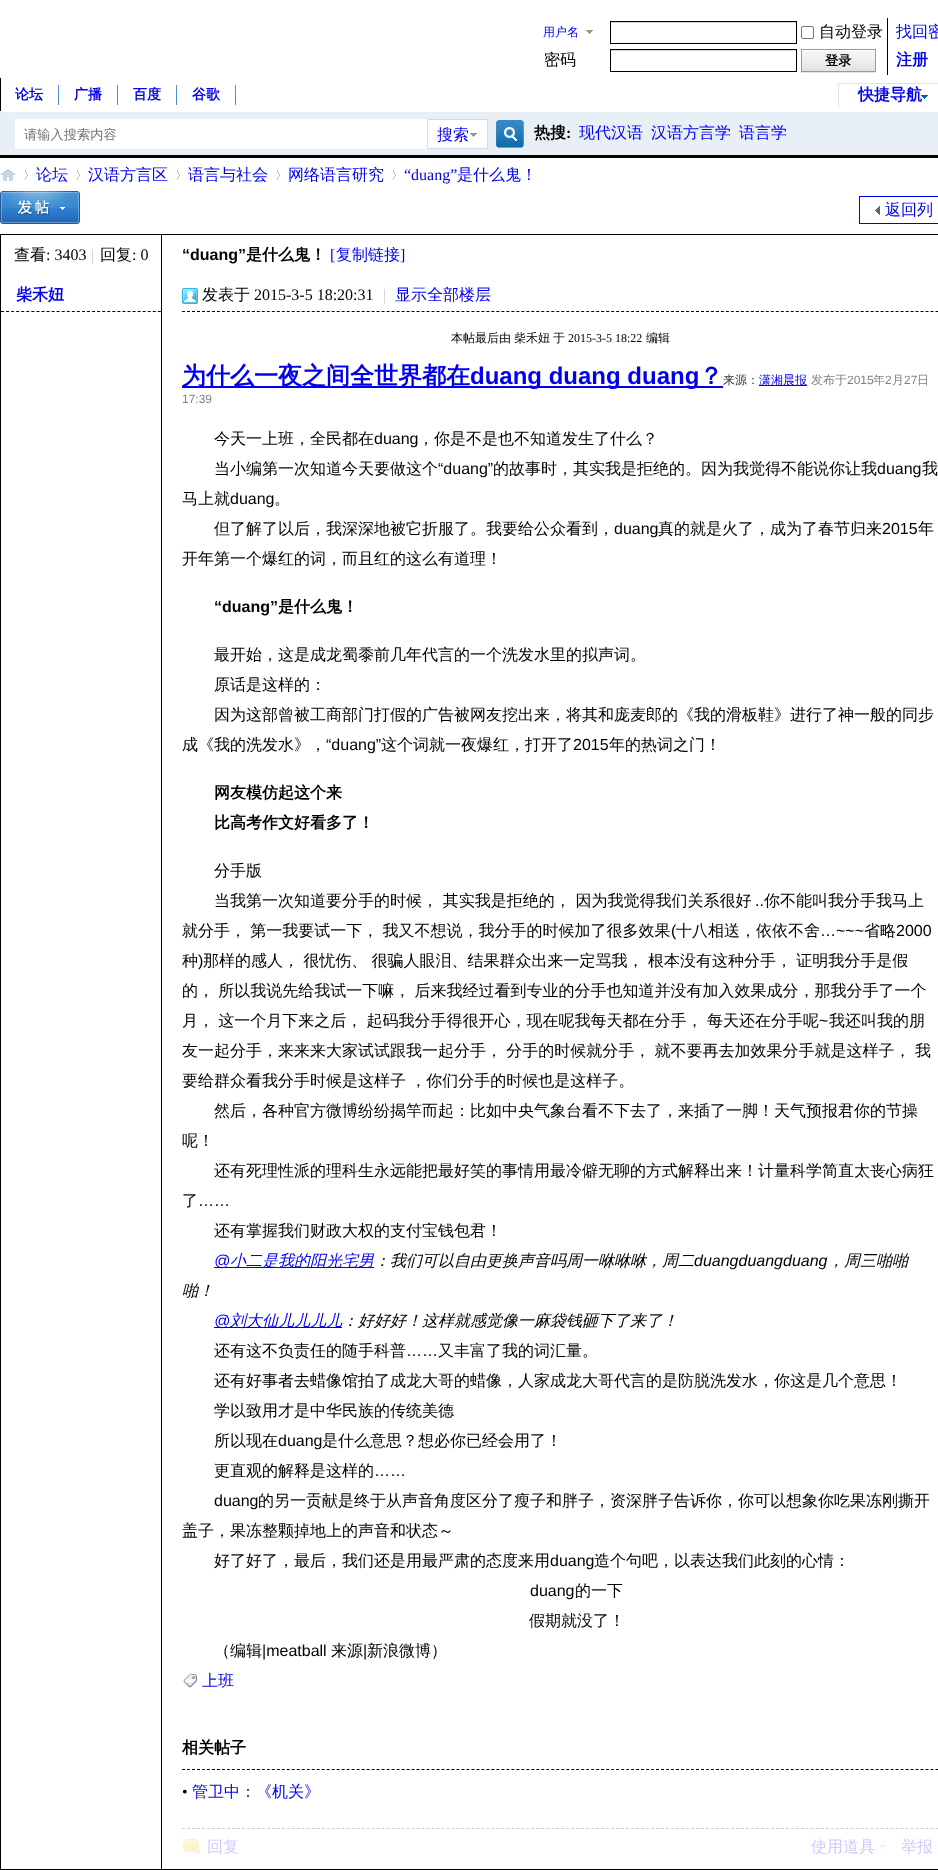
async function draw(canvas) {
	canvas.width = 938;
	canvas.height = 1870;
	const c = canvas.getContext('2d');
	c.miterLimit = 4;
	c.fontKerning = 'normal';
	async function loadImage(src) {
		const img = new Image();
		img.src = src;
		await img.decode();
		return img;
	}

	c.fillStyle = '#fff';
	c.fillRect(0, 0, 938, 1870);
	c.fillStyle = '#000';
	c.fillRect(0, 155, 938, 3);
	c.drawImage(await loadImage('img1.png'), 586, 30, 7, 4);
	c.font = '500 12px WenQuanYi Zen Hei';
	c.fillStyle = '#00e';
	c.fillText('用户名', 543, 36);
	c.fillStyle = '#d4d4d4';
	c.fillRect(610, 22, 187, 1);
	c.strokeStyle = '#000';
	c.strokeRect(610.5, 21.5, 186, 22);
	c.beginPath();
	c.roundRect(801.5, 26.5, 12, 12, 1.5);
	c.strokeStyle = '#767676';
	c.stroke();
	c.font = '500 16px WenQuanYi Zen Hei';
	c.fillStyle = '#000';
	c.fillText('自动登录', 819, 37);
	c.fillStyle = '#00e';
	c.fillText('找回密', 896, 37);
	c.fillStyle = '#000';
	c.fillText('密码', 544, 65);
	c.fillStyle = '#d4d4d4';
	c.fillRect(610, 50, 187, 1);
	c.strokeStyle = '#000';
	c.strokeRect(610.5, 49.5, 186, 22);
	c.fillStyle = '#000';
	c.fillRect(887, 18, 1, 57);
	c.fillStyle = '#e5e5e5';
	c.fillRect(801, 72, 75, 1);
	c.drawImage(await loadImage('img2.png'), 802, 50, 73, 21);
	c.strokeStyle = '#999';
	c.strokeRect(801.5, 49.5, 74, 22);
	c.font = 'bold 13.25px WenQuanYi Zen Hei';
	c.fillStyle = '#000';
	c.fillText('登录', 825, 65);
	c.font = 'bold 16px WenQuanYi Zen Hei';
	c.fillStyle = '#00e';
	c.fillText('注册', 896, 65);
	c.fillStyle = '#000';
	c.fillRect(0, 78, 1, 33);
	c.drawImage(await loadImage('img3.png'), 58, 85, 1, 20);
	c.font = 'bold 14px WenQuanYi Zen Hei';
	c.fillStyle = '#00e';
	c.fillText('论坛', 15, 99);
	c.drawImage(await loadImage('img3.png'), 117, 85, 1, 20);
	c.fillText('广播', 74, 99);
	c.drawImage(await loadImage('img3.png'), 176, 85, 1, 20);
	c.fillText('百度', 133, 99);
	c.drawImage(await loadImage('img3.png'), 235, 85, 1, 20);
	c.fillText('谷歌', 192, 99);
	c.drawImage(await loadImage('img4.png'), 838, 83, 100, 24);
	c.font = 'bold 16px WenQuanYi Zen Hei';
	c.fillText('快捷导航', 858, 100);
	c.fillStyle = '#e8eff5';
	c.fillRect(0, 112, 938, 43);
	c.fillStyle = '#fff';
	c.fillRect(15, 119, 412, 30);
	c.drawImage(await loadImage('img5.png'), 427, 119, 61, 30);
	c.font = '500 16px WenQuanYi Zen Hei';
	c.fillStyle = '#00e';
	c.fillText('搜索', 437, 140);
	c.drawImage(await loadImage('img6.png'), 496, 120, 28, 28);
	c.font = 'bold 16px WenQuanYi Zen Hei';
	c.fillStyle = '#000';
	c.fillText('热搜', 534, 138);
	c.font = 'bold 16px Liberation Serif';
	c.fillText(':', 566, 138);
	c.font = '500 16px WenQuanYi Zen Hei';
	c.fillStyle = '#00e';
	for (const [text, x, y] of [
		['现代汉语', 579, 138],
		['汉语方言学', 651, 138],
		['语言学', 739, 138],
	]) {
		c.fillText(text, x, y);
	}
	c.font = '500 13.25px WenQuanYi Zen Hei';
	c.fillStyle = '#757575';
	c.fillText('请输入搜索内容', 24, 139);
	c.drawImage(await loadImage('img7.png'), 0, 169, 16, 12);
	c.drawImage(await loadImage('img8.png'), 25, 170, 3, 10);
	c.font = '500 16px WenQuanYi Zen Hei';
	c.fillStyle = '#00e';
	c.fillText('论坛', 36, 180);
	c.drawImage(await loadImage('img8.png'), 77, 170, 3, 10);
	c.fillText('汉语方言区', 88, 180);
	c.drawImage(await loadImage('img8.png'), 177, 170, 3, 10);
	c.fillText('语言与社会', 188, 180);
	c.drawImage(await loadImage('img8.png'), 277, 170, 3, 10);
	c.fillText('网络语言研究', 288, 180);
	c.drawImage(await loadImage('img8.png'), 393, 170, 3, 10);
	c.font = '16px Liberation Serif';
	c.fillText('“duang”', 404, 180);
	c.font = '500 16px WenQuanYi Zen Hei';
	c.fillText('是什么鬼！', 457, 180);
	c.drawImage(await loadImage('img9.png'), 0, 191, 80, 33);
	c.drawImage(await loadImage('img10.png'), 875, 206, 5, 9);
	c.strokeStyle = '#00e';
	c.strokeRect(859.5, 196.5, 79, 27);
	c.fillText('返回列', 885, 215);
	c.strokeStyle = '#000';
	c.strokeRect(0.5, 234.5, 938, 1635);
	c.fillStyle = '#000';
	c.fillRect(161, 235, 1, 41);
	c.fillText('查看', 14, 260);
	c.font = '16px Liberation Serif';
	c.fillText(': 3403', 46, 260);
	c.fillStyle = '#ccc';
	c.fillText('|', 91, 260);
	c.font = '500 16px WenQuanYi Zen Hei';
	c.fillStyle = '#000';
	c.fillText('回复', 100, 260);
	c.font = '16px Liberation Serif';
	c.fillText(': 0', 132, 260);
	c.font = 'bold 16px Liberation Sans';
	c.fillText('“duang”', 182, 260);
	c.font = 'bold 16px WenQuanYi Zen Hei';
	c.fillText('是什么鬼！', 246, 260);
	c.font = '16px Liberation Serif';
	c.fillStyle = '#00e';
	c.fillText('[', 330, 260);
	c.font = '500 16px WenQuanYi Zen Hei';
	c.fillText('复制链接', 336, 260);
	c.font = '16px Liberation Serif';
	c.fillText(']', 400, 260);
	c.fillStyle = '#000';
	c.fillRect(161, 275, 1, 1595);
	c.beginPath();
	c.moveTo(1, 311.5);
	c.lineTo(161, 311.5);
	c.setLineDash([3, 2.06]);
	c.stroke();
	c.font = 'bold 16px WenQuanYi Zen Hei';
	c.fillStyle = '#00e';
	c.fillText('柴禾妞', 16, 300);
	c.beginPath();
	c.moveTo(182, 311.5);
	c.lineTo(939, 311.5);
	c.setLineDash([3, 1.99]);
	c.stroke();
	c.drawImage(await loadImage('img11.png'), 182, 288, 16, 16);
	c.font = '500 16px WenQuanYi Zen Hei';
	c.fillStyle = '#000';
	c.fillText('发表于', 202, 300);
	c.font = '16px Liberation Serif';
	c.fillText('2015-3-5 18:20:31', 254, 300);
	c.fillStyle = '#ccc';
	c.fillText('|', 383, 300);
	c.font = '500 16px WenQuanYi Zen Hei';
	c.fillStyle = '#00e';
	c.fillText('显示全部楼层', 395, 300);
	c.font = '500 12px WenQuanYi Zen Hei';
	c.fillStyle = '#000';
	for (const [text, x, y] of [
		['本帖最后由', 451, 342],
		['柴禾妞', 514, 342],
		['于', 553, 342],
	]) {
		c.fillText(text, x, y);
	}
	c.font = '12px Liberation Serif';
	c.fillText('2015-3-5 18:22', 568, 342);
	c.font = '500 12px WenQuanYi Zen Hei';
	c.fillText('编辑', 646, 342);
	c.fillStyle = '#00e';
	c.fillRect(182, 386, 541, 2);
	c.font = 'bold 24px WenQuanYi Zen Hei';
	c.fillText('为什么一夜之间全世界都在', 182, 384);
	c.font = 'bold 24px Liberation Sans';
	c.fillText('duang duang duang', 470, 384);
	c.font = 'bold 24px WenQuanYi Zen Hei';
	c.fillText('？', 699, 384);
	c.font = '500 12px WenQuanYi Zen Hei';
	c.fillStyle = '#333';
	c.fillText('来源：', 723, 384);
	c.fillStyle = '#00e';
	c.fillRect(759, 385, 48, 1);
	c.fillText('潇湘晨报', 759, 384);
	c.fillStyle = '#808080';
	c.fillText('发布于', 811, 384);
	c.font = '12px Liberation Sans';
	c.fillText('2015', 847, 384);
	c.font = '500 12px WenQuanYi Zen Hei';
	c.fillText('年', 873, 384);
	c.font = '12px Liberation Sans';
	c.fillText('2', 885, 384);
	c.font = '500 12px WenQuanYi Zen Hei';
	c.fillText('月', 892, 384);
	c.font = '12px Liberation Sans';
	c.fillText('27', 904, 384);
	c.font = '500 12px WenQuanYi Zen Hei';
	c.fillText('日', 917, 384);
	c.font = '12px Liberation Sans';
	c.fillText('17:39', 182, 403);
	c.font = '500 16px WenQuanYi Zen Hei';
	c.fillStyle = '#000';
	c.fillText('今天一上班，全民都在', 214, 444);
	c.font = '16px Liberation Sans';
	c.fillText('duang', 374, 444);
	c.font = '500 16px WenQuanYi Zen Hei';
	c.fillText('，你是不是也不知道发生了什么？', 418, 444);
	c.fillText('当小编第一次知道今天要做这个', 214, 474);
	c.font = '16px Liberation Sans';
	c.fillText('“duang”', 438, 474);
	c.font = '500 16px WenQuanYi Zen Hei';
	c.fillText('的故事时，其实我是拒绝的。因为我觉得不能说你让我', 493, 474);
	c.font = '16px Liberation Sans';
	c.fillText('duang', 877, 474);
	c.font = '500 16px WenQuanYi Zen Hei';
	c.fillText('我', 922, 474);
	c.fillText('马上就', 182, 504);
	c.font = '16px Liberation Sans';
	c.fillText('duang', 230, 504);
	c.font = '500 16px WenQuanYi Zen Hei';
	c.fillText('。', 274, 504);
	c.fillText('但了解了以后，我深深地被它折服了。我要给公众看到，', 214, 534);
	c.font = '16px Liberation Sans';
	c.fillText('duang', 614, 534);
	c.font = '500 16px WenQuanYi Zen Hei';
	c.fillText('真的就是火了，成为了春节归来', 658, 534);
	c.font = '16px Liberation Sans';
	c.fillText('2015', 882, 534);
	c.font = '500 16px WenQuanYi Zen Hei';
	c.fillText('年', 918, 534);
	c.fillText('开年第一个爆红的词，而且红的这么有道理！', 182, 564);
	c.font = 'bold 16px Liberation Sans';
	c.fillText('“duang”', 214, 612);
	c.font = 'bold 16px WenQuanYi Zen Hei';
	c.fillText('是什么鬼！', 278, 612);
	c.font = '500 16px WenQuanYi Zen Hei';
	for (const [text, x, y] of [
		['最开始，这是成龙蜀黍前几年代言的一个洗发水里的拟声词。', 214, 660],
		['原话是这样的：', 214, 690],
		['因为这部曾被工商部门打假的广告被网友挖出来，将其和庞麦郎的《我的滑板鞋》进行了神一般的同步', 214, 720],
		['成《我的洗发水》，', 182, 750],
	]) {
		c.fillText(text, x, y);
	}
	c.font = '16px Liberation Sans';
	c.fillText('“duang”', 326, 750);
	c.font = '500 16px WenQuanYi Zen Hei';
	c.fillText('这个词就一夜爆红，打开了', 381, 750);
	c.font = '16px Liberation Sans';
	c.fillText('2015', 573, 750);
	c.font = '500 16px WenQuanYi Zen Hei';
	c.fillText('年的热词之门！', 609, 750);
	c.font = 'bold 16px WenQuanYi Zen Hei';
	c.fillText('网友模仿起这个来', 214, 798);
	c.fillText('比高考作文好看多了！', 214, 828);
	c.font = '500 16px WenQuanYi Zen Hei';
	c.fillText('分手版', 214, 876);
	c.fillText('当我第一次知道要分手的时候， 其实我是拒绝的， 因为我觉得我们关系很好', 214, 906);
	c.font = '16px Liberation Sans';
	c.fillText('..', 755, 906);
	c.font = '500 16px WenQuanYi Zen Hei';
	c.fillText('你不能叫我分手我马上', 764, 906);
	c.wordSpacing = '-0.5px';
	c.fillText('就分手， 第一我要试一下， 我又不想说，我分手的时候加了很多效果', 182, 936);
	c.wordSpacing = '0px';
	c.font = '16px Liberation Sans';
	c.fillText('(', 671, 936);
	c.font = '500 16px WenQuanYi Zen Hei';
	c.fillText('十八相送，依依不舍', 676, 936);
	c.font = '16px Liberation Sans';
	c.fillText('…~~~', 820, 936);
	c.font = '500 16px WenQuanYi Zen Hei';
	c.fillText('省略', 864, 936);
	c.font = '16px Liberation Sans';
	c.fillText('2000', 896, 936);
	c.font = '500 16px WenQuanYi Zen Hei';
	c.fillText('种', 182, 966);
	c.font = '16px Liberation Sans';
	c.fillText(')', 198, 966);
	c.wordSpacing = '-0.5px';
	c.font = '500 16px WenQuanYi Zen Hei';
	for (const [text, x, y] of [
		['那样的感人， 很忧伤、 很骗人眼泪、结果群众出来一定骂我， 根本没有这种分手， 证明我分手是假', 203, 966],
		['的， 所以我说先给我试一下嘛， 后来我经过看到专业的分手也知道并没有加入效果成分，那我分手了一个', 182, 996],
		['月， 这一个月下来之后， 起码我分手得很开心，现在呢我每天都在分手， 每天还在分手呢', 182, 1026],
	]) {
		c.fillText(text, x, y);
	}
	c.wordSpacing = '0px';
	c.font = '16px Liberation Sans';
	c.fillText('~', 819, 1026);
	c.font = '500 16px WenQuanYi Zen Hei';
	c.fillText('我还叫我的朋', 829, 1026);
	c.wordSpacing = '-0.5px';
	c.fillText('友一起分手，来来来大家试试跟我一起分手， 分手的时候就分手， 就不要再去加效果分手就是这样子， 我', 182, 1056);
	c.fillText('要给群众看我分手时候是这样子 ，你们分手的时候也是这样子。', 182, 1086);
	c.wordSpacing = '0px';
	for (const [text, x, y] of [
		['然后，各种官方微博纷纷揭竿而起：比如中央气象台看不下去了，来插了一脚！天气预报君你的节操', 214, 1116],
		['呢！', 182, 1146],
		['还有死理性派的理科生永远能把最好笑的事情用最冷僻无聊的方式解释出来！计量科学简直太丧心病狂', 214, 1176],
		['了', 182, 1206],
	]) {
		c.fillText(text, x, y);
	}
	c.font = '16px Liberation Sans';
	c.fillText('……', 198, 1206);
	c.font = '500 16px WenQuanYi Zen Hei';
	c.fillText('还有掌握我们财政大权的支付宝钱包君！', 214, 1236);
	c.fillStyle = '#00e';
	c.fillRect(214, 1267, 160, 1);
	c.font = 'italic 16px Liberation Sans';
	c.fillText('@', 214, 1266);
	c.font = 'italic 500 16px WenQuanYi Zen Hei';
	c.fillText('小二是我的阳光宅男', 230, 1266);
	c.fillStyle = '#000';
	c.fillText('：我们可以自由更换声音吗周一咻咻咻，周二', 374, 1266);
	c.font = 'italic 16px Liberation Sans';
	c.fillText('duangduangduang', 694, 1266);
	c.font = 'italic 500 16px WenQuanYi Zen Hei';
	c.fillText('，周三啪啪', 828, 1266);
	c.fillText('啪！', 182, 1296);
	c.fillStyle = '#00e';
	c.fillRect(214, 1327, 128, 1);
	c.font = 'italic 16px Liberation Sans';
	c.fillText('@', 214, 1326);
	c.font = 'italic 500 16px WenQuanYi Zen Hei';
	c.fillText('刘大仙儿儿儿儿', 230, 1326);
	c.fillStyle = '#000';
	c.fillText('：好好好！这样就感觉像一麻袋钱砸下了来了！', 342, 1326);
	c.font = '500 16px WenQuanYi Zen Hei';
	c.fillText('还有这不负责任的随手科普', 214, 1356);
	c.font = '16px Liberation Sans';
	c.fillText('……', 406, 1356);
	c.font = '500 16px WenQuanYi Zen Hei';
	for (const [text, x, y] of [
		['又丰富了我的词汇量。', 438, 1356],
		['还有好事者去蜡像馆拍了成龙大哥的蜡像，人家成龙大哥代言的是防脱洗发水，你这是几个意思！', 214, 1386],
		['学以致用才是中华民族的传统美德', 214, 1416],
		['所以现在', 214, 1446],
	]) {
		c.fillText(text, x, y);
	}
	c.font = '16px Liberation Sans';
	c.fillText('duang', 278, 1446);
	c.font = '500 16px WenQuanYi Zen Hei';
	c.fillText('是什么意思？想必你已经会用了！', 322, 1446);
	c.fillText('更直观的解释是这样的', 214, 1476);
	c.font = '16px Liberation Sans';
	c.fillText('……', 374, 1476);
	c.fillText('duang', 214, 1506);
	c.font = '500 16px WenQuanYi Zen Hei';
	for (const [text, x, y] of [
		['的另一贡献是终于从声音角度区分了瘦子和胖子，资深胖子告诉你，你可以想象你吃果冻刚撕开', 258, 1506],
		['盖子，果冻整颗掉地上的声音和状态～', 182, 1536],
		['好了好了，最后，我们还是用最严肃的态度来用', 214, 1566],
	]) {
		c.fillText(text, x, y);
	}
	c.font = '16px Liberation Sans';
	c.fillText('duang', 550, 1566);
	c.font = '500 16px WenQuanYi Zen Hei';
	c.fillText('造个句吧，以表达我们此刻的心情：', 594, 1566);
	c.font = '16px Liberation Sans';
	c.fillText('duang', 530, 1596);
	c.font = '500 16px WenQuanYi Zen Hei';
	for (const [text, x, y] of [
		['的一下', 575, 1596],
		['假期就没了！', 529, 1626],
		['（编辑', 214, 1656],
	]) {
		c.fillText(text, x, y);
	}
	c.font = '16px Liberation Sans';
	c.fillText('|meatball', 262, 1656);
	c.font = '500 16px WenQuanYi Zen Hei';
	c.fillText('来源', 331, 1656);
	c.font = '16px Liberation Sans';
	c.fillText('|', 363, 1656);
	c.font = '500 16px WenQuanYi Zen Hei';
	c.fillText('新浪微博）', 367, 1656);
	c.drawImage(await loadImage('img12.png'), 183, 1674, 14, 14);
	c.fillStyle = '#00e';
	c.fillText('上班', 202, 1686);
	c.beginPath();
	c.moveTo(182, 1769.5);
	c.lineTo(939, 1769.5);
	c.stroke();
	c.font = 'bold 16px WenQuanYi Zen Hei';
	c.fillStyle = '#000';
	c.fillText('相关帖子', 182, 1753);
	c.font = '16px Liberation Serif';
	c.fillText('•', 182, 1797);
	c.font = '500 16px WenQuanYi Zen Hei';
	c.fillStyle = '#00e';
	c.fillText('管卫中：《机关》', 192, 1797);
	c.beginPath();
	c.moveTo(182, 1828.5);
	c.lineTo(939, 1828.5);
	c.strokeStyle = '#ccc';
	c.stroke();
	c.drawImage(await loadImage('img13.png'), 183, 1839, 16, 15);
	c.fillStyle = '#ccccfc';
	c.fillText('回复', 207, 1852);
	c.fillText('使用道具', 811, 1852);
	c.drawImage(await loadImage('img14.png'), 879, 1845, 7, 4);
	c.fillText('举报', 901, 1852);
}

draw(document.querySelector('canvas'));
